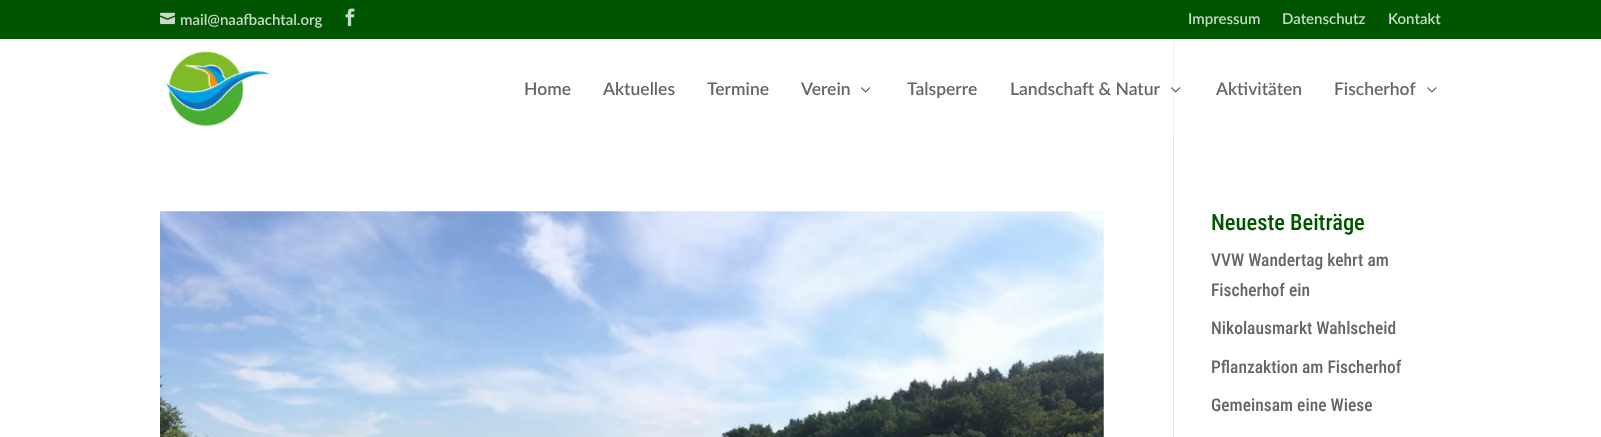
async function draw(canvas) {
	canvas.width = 1601;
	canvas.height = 437;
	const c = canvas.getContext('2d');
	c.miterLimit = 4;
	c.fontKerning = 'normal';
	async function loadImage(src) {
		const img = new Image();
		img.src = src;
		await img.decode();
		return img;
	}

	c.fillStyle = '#fff';
	c.fillRect(0, 0, 1601, 437);
	c.fillStyle = '#050';
	c.fillRect(0, 0, 1601, 39);
	c.drawImage(await loadImage('img1.png'), 160, 12, 15, 13);
	c.font = '600 15px Lato';
	c.fillStyle = '#c7dac7';
	c.fillText('mail@naafbachtal.org', 180, 25);
	c.drawImage(await loadImage('img2.png'), 345, 8, 10, 19);
	for (const [text, x, y] of [
		['Impressum', 1188, 24],
		['Datenschutz', 1282, 24],
		['Kontakt', 1388, 24],
	]) {
		c.fillText(text, x, y);
	}
	c.drawImage(await loadImage('img3.png'), 165, 51, 105, 76);
	c.font = '600 17.5px Lato';
	c.fillStyle = '#666';
	for (const [text, x, y] of [
		['Home', 524, 95],
		['Aktuelles', 603, 95],
		['Termine', 707, 95],
		['Verein', 801, 95],
	]) {
		c.fillText(text, x, y);
	}
	c.drawImage(await loadImage('img4.png'), 861, 87, 10, 6);
	c.fillText('Talsperre', 907, 95);
	c.fillText('Landschaft & Natur', 1010, 95);
	c.fillStyle = '#eee';
	c.fillRect(1173, 39, 1, 100);
	c.drawImage(await loadImage('img5.png'), 1171, 87, 10, 6);
	c.fillStyle = '#666';
	c.fillText('Aktivitäten', 1216, 95);
	c.fillText('Fischerhof', 1334, 95);
	c.drawImage(await loadImage('img6.png'), 1427, 87, 10, 6);
	c.fillStyle = '#e2e2e2';
	c.fillRect(1173, 139, 1, 298);
	c.drawImage(await loadImage('img7.png'), 160, 211, 944, 226);
	c.font = '500 22.5px Roboto Condensed';
	c.fillStyle = '#050';
	c.fillText('Neueste Beiträge', 1211, 230);
	c.font = '500 17.5px Roboto Condensed';
	c.fillStyle = '#666';
	for (const [text, x, y] of [
		['VVW Wandertag kehrt am', 1211, 266],
		['Fischerhof ein', 1211, 296],
		['Nikolausmarkt Wahlscheid', 1211, 334],
		['Pflanzaktion am Fischerhof', 1211, 373],
		['Gemeinsam eine Wiese', 1211, 411],
	]) {
		c.fillText(text, x, y);
	}
}

draw(document.querySelector('canvas'));
